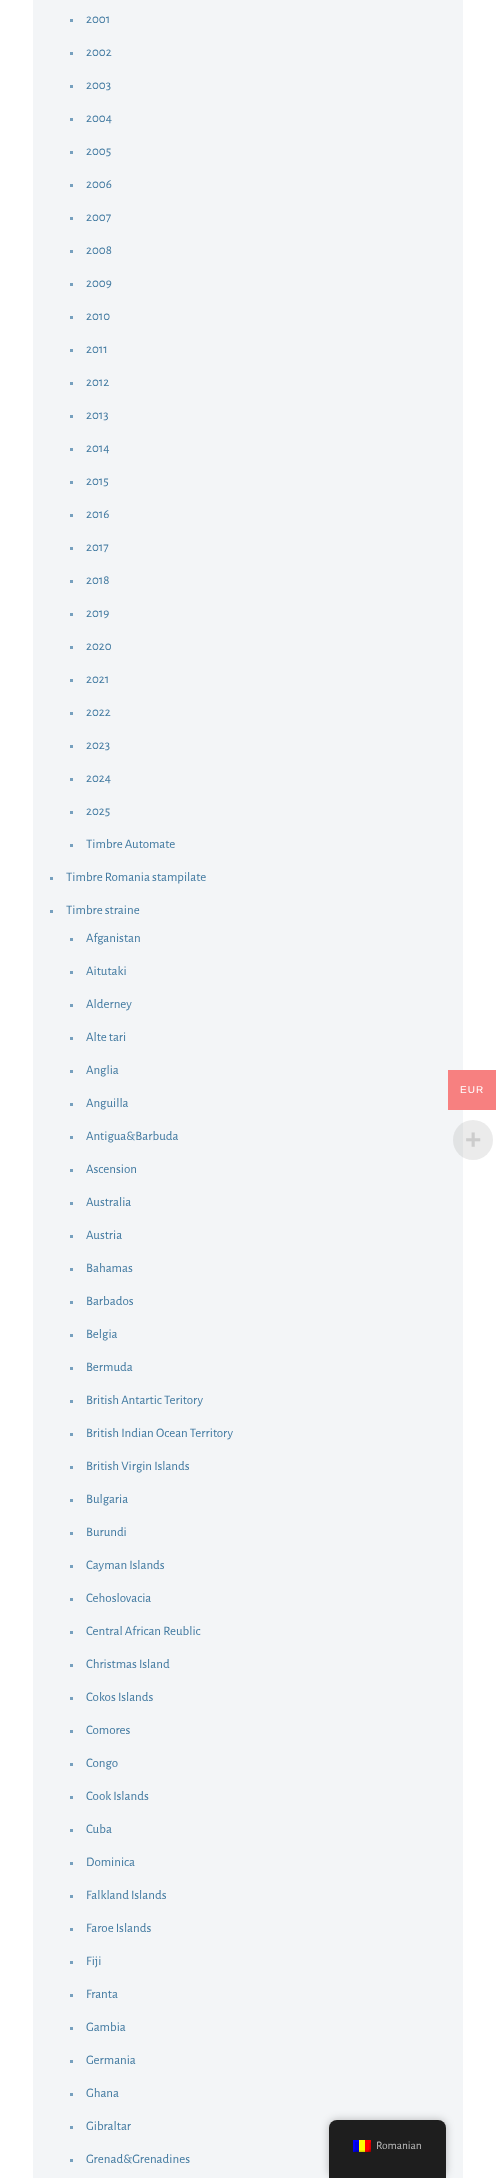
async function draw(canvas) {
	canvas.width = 496;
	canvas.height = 2178;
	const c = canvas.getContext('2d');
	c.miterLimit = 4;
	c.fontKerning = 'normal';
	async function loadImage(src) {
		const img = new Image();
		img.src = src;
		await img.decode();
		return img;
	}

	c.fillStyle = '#fff';
	c.fillRect(0, 0, 496, 2178);
	c.fillStyle = '#f3f5f7';
	c.fillRect(33, 0, 430, 2178);
	c.fillStyle = '#76a0be';
	c.fillRect(70, 19, 3, 3);
	c.font = '13px Alegreya Sans';
	c.fillStyle = '#4179a0';
	c.fillText('2001', 86, 23);
	c.fillStyle = '#76a0be';
	c.fillRect(70, 52, 3, 3);
	c.fillStyle = '#4179a0';
	c.fillText('2002', 86, 56);
	c.fillStyle = '#76a0be';
	c.fillRect(70, 85, 3, 3);
	c.fillStyle = '#4179a0';
	c.fillText('2003', 86, 89);
	c.fillStyle = '#76a0be';
	c.fillRect(70, 118, 3, 3);
	c.fillStyle = '#4179a0';
	c.fillText('2004', 86, 122);
	c.fillStyle = '#76a0be';
	c.fillRect(70, 151, 3, 3);
	c.fillStyle = '#4179a0';
	c.fillText('2005', 86, 155);
	c.fillStyle = '#76a0be';
	c.fillRect(70, 184, 3, 3);
	c.fillStyle = '#4179a0';
	c.fillText('2006', 86, 188);
	c.fillStyle = '#76a0be';
	c.fillRect(70, 217, 3, 3);
	c.fillStyle = '#4179a0';
	c.fillText('2007', 86, 221);
	c.fillStyle = '#76a0be';
	c.fillRect(70, 250, 3, 3);
	c.fillStyle = '#4179a0';
	c.fillText('2008', 86, 254);
	c.fillStyle = '#76a0be';
	c.fillRect(70, 283, 3, 3);
	c.fillStyle = '#4179a0';
	c.fillText('2009', 86, 287);
	c.fillStyle = '#76a0be';
	c.fillRect(70, 316, 3, 3);
	c.fillStyle = '#4179a0';
	c.fillText('2010', 86, 320);
	c.fillStyle = '#76a0be';
	c.fillRect(70, 349, 3, 3);
	c.fillStyle = '#4179a0';
	c.fillText('2011', 86, 353);
	c.fillStyle = '#76a0be';
	c.fillRect(70, 382, 3, 3);
	c.fillStyle = '#4179a0';
	c.fillText('2012', 86, 386);
	c.fillStyle = '#76a0be';
	c.fillRect(70, 415, 3, 3);
	c.fillStyle = '#4179a0';
	c.fillText('2013', 86, 419);
	c.fillStyle = '#76a0be';
	c.fillRect(70, 448, 3, 3);
	c.fillStyle = '#4179a0';
	c.fillText('2014', 86, 452);
	c.fillStyle = '#76a0be';
	c.fillRect(70, 481, 3, 3);
	c.fillStyle = '#4179a0';
	c.fillText('2015', 86, 485);
	c.fillStyle = '#76a0be';
	c.fillRect(70, 514, 3, 3);
	c.fillStyle = '#4179a0';
	c.fillText('2016', 86, 518);
	c.fillStyle = '#76a0be';
	c.fillRect(70, 547, 3, 3);
	c.fillStyle = '#4179a0';
	c.fillText('2017', 86, 551);
	c.fillStyle = '#76a0be';
	c.fillRect(70, 580, 3, 3);
	c.fillStyle = '#4179a0';
	c.fillText('2018', 86, 584);
	c.fillStyle = '#76a0be';
	c.fillRect(70, 613, 3, 3);
	c.fillStyle = '#4179a0';
	c.fillText('2019', 86, 617);
	c.fillStyle = '#76a0be';
	c.fillRect(70, 646, 3, 3);
	c.fillStyle = '#4179a0';
	c.fillText('2020', 86, 650);
	c.fillStyle = '#76a0be';
	c.fillRect(70, 679, 3, 3);
	c.fillStyle = '#4179a0';
	c.fillText('2021', 86, 683);
	c.fillStyle = '#76a0be';
	c.fillRect(70, 712, 3, 3);
	c.fillStyle = '#4179a0';
	c.fillText('2022', 86, 716);
	c.fillStyle = '#76a0be';
	c.fillRect(70, 745, 3, 3);
	c.fillStyle = '#4179a0';
	c.fillText('2023', 86, 749);
	c.fillStyle = '#76a0be';
	c.fillRect(70, 778, 3, 3);
	c.fillStyle = '#4179a0';
	c.fillText('2024', 86, 782);
	c.fillStyle = '#76a0be';
	c.fillRect(70, 811, 3, 3);
	c.fillStyle = '#4179a0';
	c.fillText('2025', 86, 815);
	c.fillStyle = '#76a0be';
	c.fillRect(70, 844, 3, 3);
	c.fillStyle = '#4179a0';
	c.fillText('Timbre Automate', 86, 848);
	c.fillStyle = '#76a0be';
	c.fillRect(50, 877, 3, 3);
	c.fillStyle = '#4179a0';
	c.fillText('Timbre Romania stampilate', 66, 881);
	c.fillStyle = '#76a0be';
	c.fillRect(50, 910, 3, 3);
	c.fillStyle = '#4179a0';
	c.fillText('Timbre straine', 66, 914);
	c.fillStyle = '#76a0be';
	c.fillRect(70, 938, 3, 3);
	c.fillStyle = '#4179a0';
	c.fillText('Afganistan', 86, 942);
	c.fillStyle = '#76a0be';
	c.fillRect(70, 971, 3, 3);
	c.fillStyle = '#4179a0';
	c.fillText('Aitutaki', 86, 975);
	c.fillStyle = '#76a0be';
	c.fillRect(70, 1004, 3, 3);
	c.fillStyle = '#4179a0';
	c.fillText('Alderney', 86, 1008);
	c.fillStyle = '#76a0be';
	c.fillRect(70, 1037, 3, 3);
	c.fillStyle = '#4179a0';
	c.fillText('Alte tari', 86, 1041);
	c.fillStyle = '#76a0be';
	c.fillRect(70, 1070, 3, 3);
	c.fillStyle = '#4179a0';
	c.fillText('Anglia', 86, 1074);
	c.fillStyle = '#76a0be';
	c.fillRect(70, 1103, 3, 3);
	c.fillStyle = '#4179a0';
	c.fillText('Anguilla', 86, 1107);
	c.fillStyle = '#76a0be';
	c.fillRect(70, 1136, 3, 3);
	c.fillStyle = '#4179a0';
	c.fillText('Antigua&Barbuda', 86, 1140);
	c.fillStyle = '#76a0be';
	c.fillRect(70, 1169, 3, 3);
	c.fillStyle = '#4179a0';
	c.fillText('Ascension', 86, 1173);
	c.fillStyle = '#76a0be';
	c.fillRect(70, 1202, 3, 3);
	c.fillStyle = '#4179a0';
	c.fillText('Australia', 86, 1206);
	c.fillStyle = '#76a0be';
	c.fillRect(70, 1235, 3, 3);
	c.fillStyle = '#4179a0';
	c.fillText('Austria', 86, 1239);
	c.fillStyle = '#76a0be';
	c.fillRect(70, 1268, 3, 3);
	c.fillStyle = '#4179a0';
	c.fillText('Bahamas', 86, 1272);
	c.fillStyle = '#76a0be';
	c.fillRect(70, 1301, 3, 3);
	c.fillStyle = '#4179a0';
	c.fillText('Barbados', 86, 1305);
	c.fillStyle = '#76a0be';
	c.fillRect(70, 1334, 3, 3);
	c.fillStyle = '#4179a0';
	c.fillText('Belgia', 86, 1338);
	c.fillStyle = '#76a0be';
	c.fillRect(70, 1367, 3, 3);
	c.fillStyle = '#4179a0';
	c.fillText('Bermuda', 86, 1371);
	c.fillStyle = '#76a0be';
	c.fillRect(70, 1400, 3, 3);
	c.fillStyle = '#4179a0';
	c.fillText('British Antartic Teritory', 86, 1404);
	c.fillStyle = '#76a0be';
	c.fillRect(70, 1433, 3, 3);
	c.fillStyle = '#4179a0';
	c.fillText('British Indian Ocean Territory', 86, 1437);
	c.fillStyle = '#76a0be';
	c.fillRect(70, 1466, 3, 3);
	c.fillStyle = '#4179a0';
	c.fillText('British Virgin Islands', 86, 1470);
	c.fillStyle = '#76a0be';
	c.fillRect(70, 1499, 3, 3);
	c.fillStyle = '#4179a0';
	c.fillText('Bulgaria', 86, 1503);
	c.fillStyle = '#76a0be';
	c.fillRect(70, 1532, 3, 3);
	c.fillStyle = '#4179a0';
	c.fillText('Burundi', 86, 1536);
	c.fillStyle = '#76a0be';
	c.fillRect(70, 1565, 3, 3);
	c.fillStyle = '#4179a0';
	c.fillText('Cayman Islands', 86, 1569);
	c.fillStyle = '#76a0be';
	c.fillRect(70, 1598, 3, 3);
	c.fillStyle = '#4179a0';
	c.fillText('Cehoslovacia', 86, 1602);
	c.fillStyle = '#76a0be';
	c.fillRect(70, 1631, 3, 3);
	c.fillStyle = '#4179a0';
	c.fillText('Central African Reublic', 86, 1635);
	c.fillStyle = '#76a0be';
	c.fillRect(70, 1664, 3, 3);
	c.fillStyle = '#4179a0';
	c.fillText('Christmas Island', 86, 1668);
	c.fillStyle = '#76a0be';
	c.fillRect(70, 1697, 3, 3);
	c.fillStyle = '#4179a0';
	c.fillText('Cokos Islands', 86, 1701);
	c.fillStyle = '#76a0be';
	c.fillRect(70, 1730, 3, 3);
	c.fillStyle = '#4179a0';
	c.fillText('Comores', 86, 1734);
	c.fillStyle = '#76a0be';
	c.fillRect(70, 1763, 3, 3);
	c.fillStyle = '#4179a0';
	c.fillText('Congo', 86, 1767);
	c.fillStyle = '#76a0be';
	c.fillRect(70, 1796, 3, 3);
	c.fillStyle = '#4179a0';
	c.fillText('Cook Islands', 86, 1800);
	c.fillStyle = '#76a0be';
	c.fillRect(70, 1829, 3, 3);
	c.fillStyle = '#4179a0';
	c.fillText('Cuba', 86, 1833);
	c.fillStyle = '#76a0be';
	c.fillRect(70, 1862, 3, 3);
	c.fillStyle = '#4179a0';
	c.fillText('Dominica', 86, 1866);
	c.fillStyle = '#76a0be';
	c.fillRect(70, 1895, 3, 3);
	c.fillStyle = '#4179a0';
	c.fillText('Falkland Islands', 86, 1899);
	c.fillStyle = '#76a0be';
	c.fillRect(70, 1928, 3, 3);
	c.fillStyle = '#4179a0';
	c.fillText('Faroe Islands', 86, 1932);
	c.fillStyle = '#76a0be';
	c.fillRect(70, 1961, 3, 3);
	c.fillStyle = '#4179a0';
	c.fillText('Fiji', 86, 1965);
	c.fillStyle = '#76a0be';
	c.fillRect(70, 1994, 3, 3);
	c.fillStyle = '#4179a0';
	c.fillText('Franta', 86, 1998);
	c.fillStyle = '#76a0be';
	c.fillRect(70, 2027, 3, 3);
	c.fillStyle = '#4179a0';
	c.fillText('Gambia', 86, 2031);
	c.fillStyle = '#76a0be';
	c.fillRect(70, 2060, 3, 3);
	c.fillStyle = '#4179a0';
	c.fillText('Germania', 86, 2064);
	c.fillStyle = '#76a0be';
	c.fillRect(70, 2093, 3, 3);
	c.fillStyle = '#4179a0';
	c.fillText('Ghana', 86, 2097);
	c.fillStyle = '#76a0be';
	c.fillRect(70, 2126, 3, 3);
	c.fillStyle = '#4179a0';
	c.fillText('Gibraltar', 86, 2130);
	c.fillStyle = '#76a0be';
	c.fillRect(70, 2159, 3, 3);
	c.fillStyle = '#4179a0';
	c.fillText('Grenad&Grenadines', 86, 2163);
	c.fillStyle = '#f78080';
	c.fillRect(448, 1070, 48, 40);
	c.letterSpacing = '1px';
	c.font = '10px Liberation Sans';
	c.fillStyle = '#fff';
	c.fillText('EUR', 460, 1093);
	c.fillStyle = '#99999933';
	c.beginPath();
	c.arc(473, 1140, 20, 0, 2 * Math.PI);
	c.fill();
	c.letterSpacing = '0px';
	c.font = 'bold 28px Liberation Sans';
	c.fillStyle = '#ccc';
	c.fillText('+', 465, 1149);
	c.fillStyle = '#00000040';
	c.filter = 'blur(4px)';
	c.beginPath();
	c.roundRect(329, 2120, 117, 58, 8);
	c.fill();
	c.filter = 'none';
	c.fillStyle = '#1e1e1e';
	c.beginPath();
	c.roundRect(329, 2120, 117, 58, [8, 8, 0, 0]);
	c.fill();
	c.drawImage(await loadImage('img1.png'), 353, 2140, 18, 12);
	c.font = '11.5px Alegreya Sans';
	c.fillStyle = '#bdbdbd';
	c.fillText('Romanian', 376, 2149);
}

draw(document.querySelector('canvas'));
